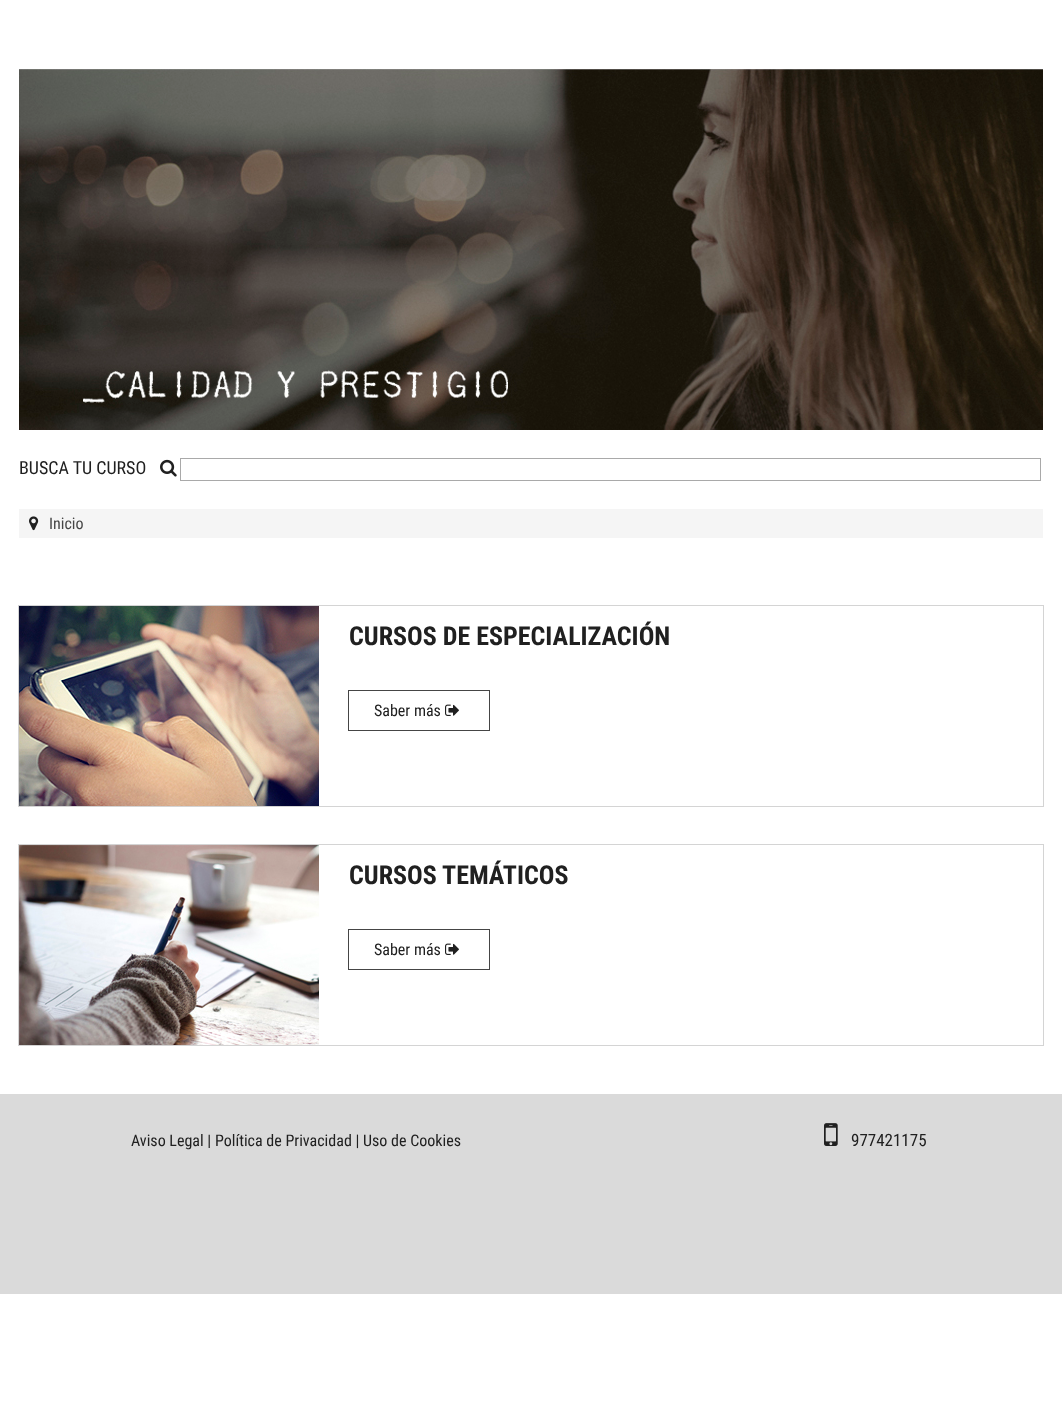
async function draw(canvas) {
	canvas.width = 1062;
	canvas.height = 1403;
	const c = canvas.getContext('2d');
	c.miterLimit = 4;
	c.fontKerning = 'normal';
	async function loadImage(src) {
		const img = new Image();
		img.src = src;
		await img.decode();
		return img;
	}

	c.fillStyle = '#fff';
	c.fillRect(0, 0, 1062, 1403);
	c.drawImage(await loadImage('img1.png'), 19, 69, 1024, 361);
	c.font = '18px Roboto Condensed';
	c.fillStyle = '#202020';
	c.fillText('BUSCA TU CURSO', 19, 474);
	c.drawImage(await loadImage('img2.png'), 160, 459, 17, 18);
	c.strokeStyle = '#a9a9a9';
	c.strokeRect(180.5, 458.5, 860, 22);
	c.fillStyle = '#f5f5f5';
	c.fillRect(19, 509, 1024, 29);
	c.drawImage(await loadImage('img3.png'), 29, 516, 10, 15);
	c.font = '16px Roboto Condensed';
	c.fillStyle = '#454545';
	c.fillText('Inicio', 49, 529);
	c.drawImage(await loadImage('img4.png'), 19, 606, 300, 200);
	c.drawImage(await loadImage('img5.png'), 445, 704, 14, 12);
	c.strokeStyle = '#454545';
	c.strokeRect(348.5, 690.5, 141, 40);
	c.strokeStyle = '#d4d4d4';
	c.strokeRect(18.5, 605.5, 1025, 201);
	c.font = 'bold 26px Roboto Condensed';
	c.fillStyle = '#202020';
	c.fillText('CURSOS DE ESPECIALIZACIÓN', 349, 645);
	c.font = '16px Roboto Condensed';
	c.fillText('Saber más', 374, 716);
	c.drawImage(await loadImage('img6.png'), 19, 845, 300, 200);
	c.drawImage(await loadImage('img5.png'), 445, 943, 14, 12);
	c.strokeStyle = '#454545';
	c.strokeRect(348.5, 929.5, 141, 40);
	c.strokeStyle = '#d4d4d4';
	c.strokeRect(18.5, 844.5, 1025, 201);
	c.font = 'bold 26px Roboto Condensed';
	c.fillText('CURSOS TEMÁTICOS', 349, 884);
	c.font = '16px Roboto Condensed';
	c.fillText('Saber más', 374, 955);
	c.fillStyle = '#dadada';
	c.fillRect(0, 1094, 1062, 200);
	c.fillStyle = '#202020';
	c.fillText('Aviso Legal | Política de Privacidad | Uso de Cookies', 131, 1146);
	c.drawImage(await loadImage('img7.png'), 824, 1123, 14, 23);
	c.font = '17px Roboto Condensed';
	c.fillText('977421175', 851, 1146);
}

draw(document.querySelector('canvas'));
